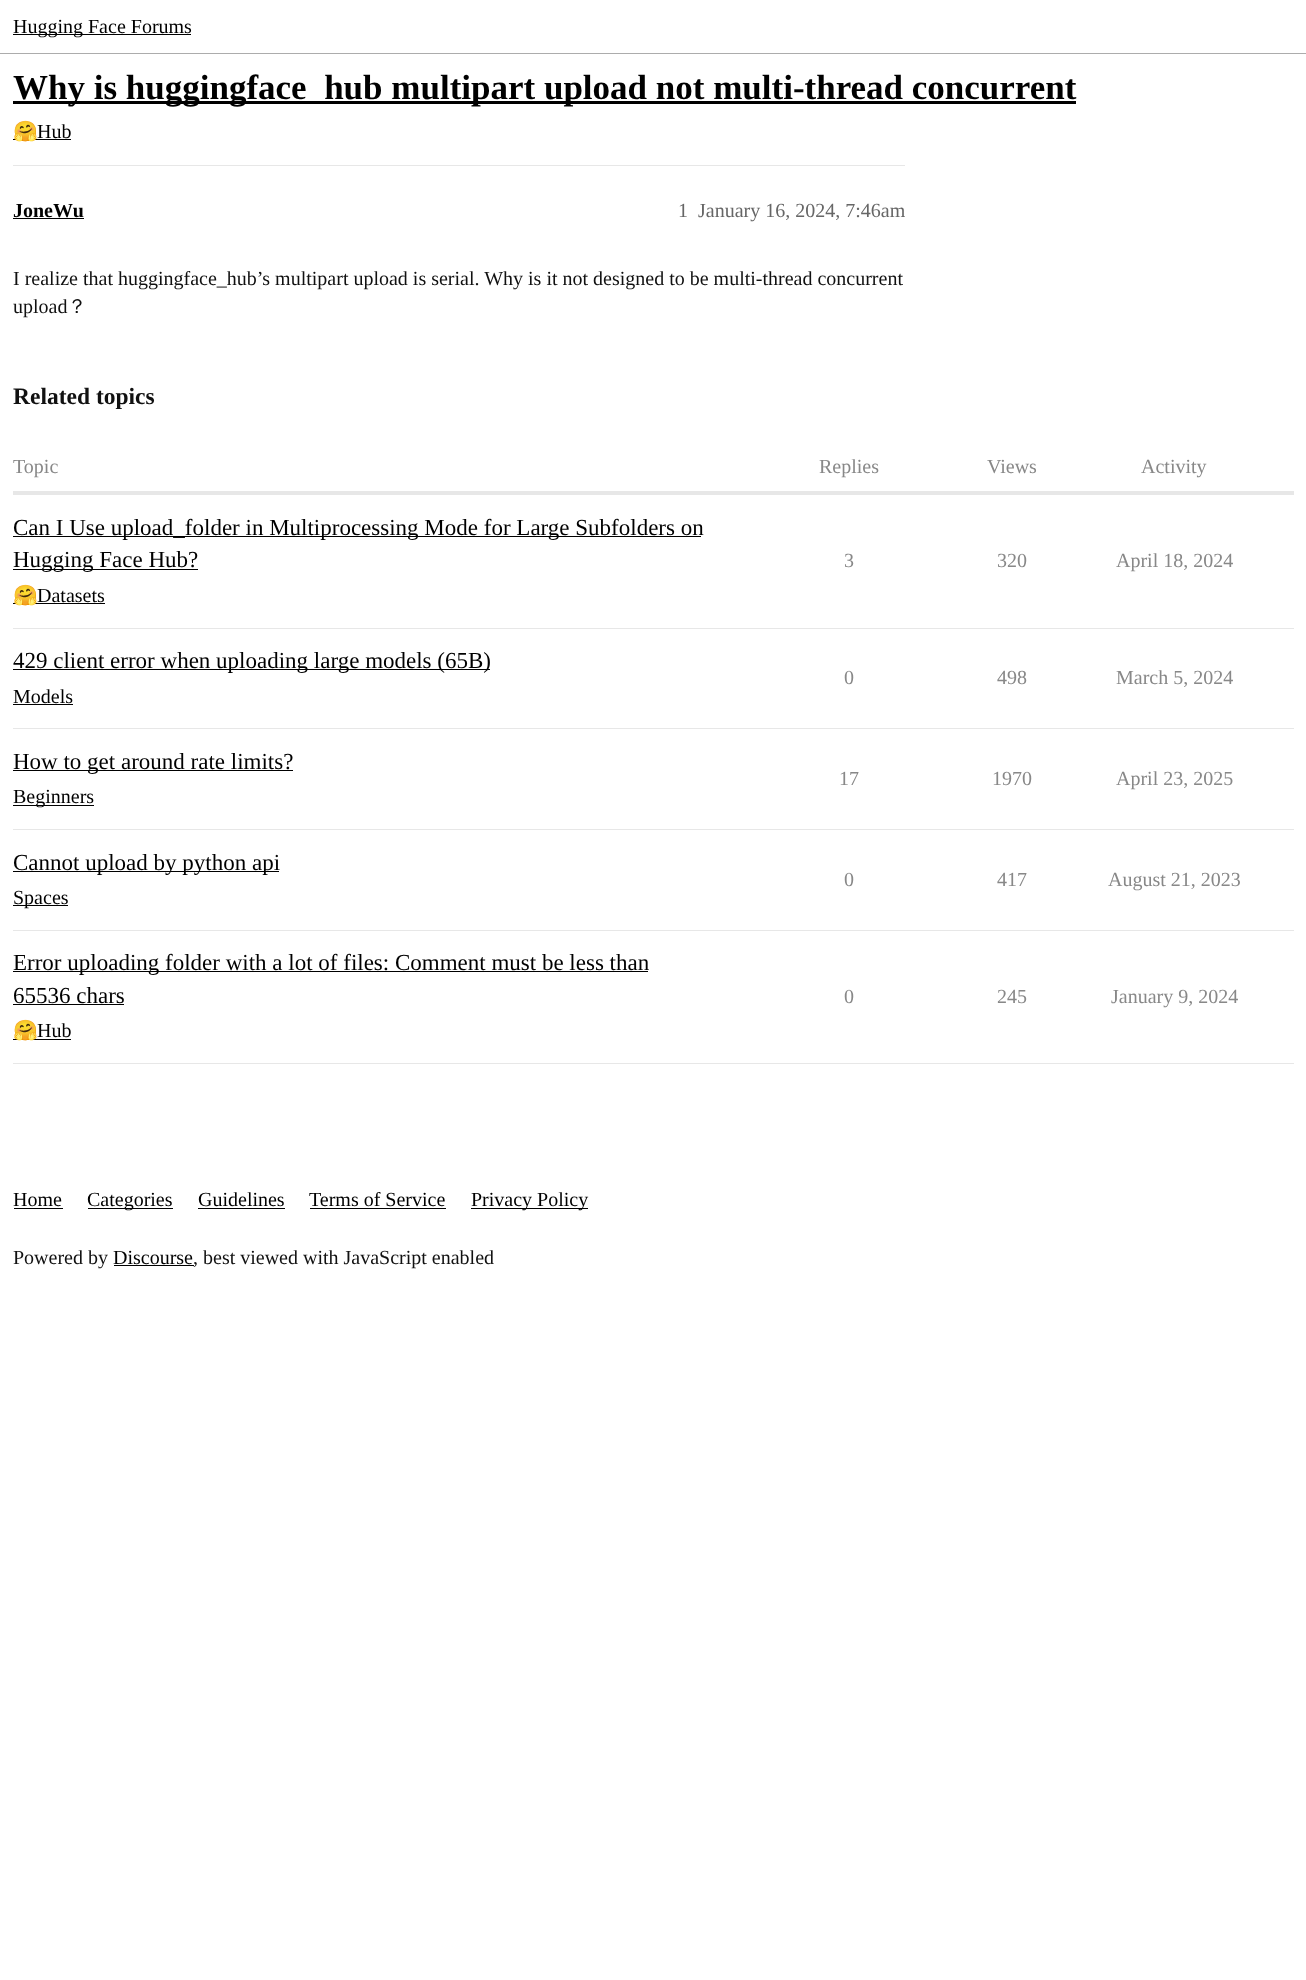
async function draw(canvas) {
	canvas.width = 1306;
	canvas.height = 1980;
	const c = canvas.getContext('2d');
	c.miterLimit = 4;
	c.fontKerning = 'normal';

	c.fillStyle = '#fff';
	c.fillRect(0, 0, 1306, 1980);
	c.fillStyle = '#acacac';
	c.fillRect(0, 53, 1306, 1);
	c.fillStyle = '#000';
	c.fillRect(13, 34, 178, 1);
	c.font = '20px Liberation Serif';
	c.fillText('Hugging Face Forums', 13, 33);
	c.fillRect(13, 101, 1063, 3);
	c.font = 'bold 35px Liberation Serif';
	c.fillText('Why is huggingface_hub multipart upload not multi-thread concurrent', 13, 99);
	c.fillRect(13, 139, 58, 1);
	c.font = '20px Noto Color Emoji';
	c.fillText('🤗', 13, 138);
	c.font = '20px Liberation Serif';
	c.fillText('Hub', 37, 138);
	c.fillStyle = '#e7e7e7';
	c.fillRect(13, 165, 892, 1);
	c.font = 'bold 20px Liberation Serif';
	c.fillStyle = '#000';
	c.fillText('JoneWu', 13, 217);
	c.fillRect(13, 218, 71, 1);
	c.font = '20px Liberation Serif';
	c.fillStyle = '#666';
	c.fillText('1', 678, 217);
	c.fillText('January 16, 2024, 7:46am', 698, 217);
	c.fillStyle = '#111';
	c.fillText('I realize that huggingface_hub’s multipart upload is serial. Why is it not designed to be multi-thread concurrent', 13, 285);
	c.fillText('upload', 13, 313);
	c.font = '500 20px WenQuanYi Zen Hei';
	c.fillText('？', 67, 313);
	c.font = 'bold 23.5px Liberation Serif';
	c.fillText('Related topics', 13, 404);
	c.save();
	c.beginPath();
	c.rect(13, 454, 1281, 610);
	c.clip();
	c.font = '20px Liberation Serif';
	c.fillStyle = '#888';
	c.fillText('Topic', 13, 473);
	c.restore();
	c.font = '20px Liberation Serif';
	c.fillStyle = '#888';
	for (const [text, x, y] of [
		['Replies', 819, 473],
		['Views', 987, 473],
		['Activity', 1141, 473],
	]) {
		c.fillText(text, x, y);
	}
	for (const [x, y, w, h, color] of [
		[13, 491, 1281, 4, '#e7e7e7'],
		[13, 628, 1281, 1, '#e7e7e7'],
		[13, 536, 688, 1, '#000'],
	]) {
		c.fillStyle = color;
		c.fillRect(x, y, w, h);
	}
	c.font = '23px Liberation Serif';
	c.fillText('Can I Use upload_folder in Multiprocessing Mode for Large Subfolders on', 13, 535);
	c.fillRect(13, 569, 185, 1);
	c.fillText('Hugging Face Hub?', 13, 567);
	c.fillRect(13, 603, 92, 1);
	c.save();
	c.beginPath();
	c.rect(13, 454, 1281, 610);
	c.clip();
	c.font = '20px Noto Color Emoji';
	c.fillText('🤗', 13, 602);
	c.restore();
	c.font = '20px Liberation Serif';
	c.fillText('Datasets', 37, 602);
	c.fillStyle = '#888';
	for (const [text, x, y] of [
		['3', 844, 567],
		['320', 997, 567],
		['April 18, 2024', 1116, 567],
	]) {
		c.fillText(text, x, y);
	}
	c.fillStyle = '#e7e7e7';
	c.fillRect(13, 728, 1281, 1);
	c.fillStyle = '#000';
	c.fillRect(13, 669, 477, 1);
	c.font = '23px Liberation Serif';
	c.fillText('429 client error when uploading large models (65B)', 13, 668);
	c.font = '20px Liberation Serif';
	c.fillText('Models', 13, 703);
	c.fillRect(13, 704, 60, 1);
	c.fillStyle = '#888';
	for (const [text, x, y] of [
		['0', 844, 684],
		['498', 997, 684],
		['March 5, 2024', 1116, 684],
	]) {
		c.fillText(text, x, y);
	}
	c.fillStyle = '#e7e7e7';
	c.fillRect(13, 829, 1281, 1);
	c.fillStyle = '#000';
	c.fillRect(13, 770, 280, 1);
	c.font = '23px Liberation Serif';
	c.fillText('How to get around rate limits?', 13, 769);
	c.fillRect(13, 805, 81, 1);
	c.font = '20px Liberation Serif';
	c.fillText('Beginners', 13, 803);
	c.fillStyle = '#888';
	for (const [text, x, y] of [
		['17', 839, 785],
		['1970', 992, 785],
		['April 23, 2025', 1116, 785],
	]) {
		c.fillText(text, x, y);
	}
	c.fillStyle = '#e7e7e7';
	c.fillRect(13, 930, 1281, 1);
	c.fillStyle = '#000';
	c.fillRect(13, 871, 266, 1);
	c.font = '23px Liberation Serif';
	c.fillText('Cannot upload by python api', 13, 870);
	c.fillRect(13, 905, 55, 1);
	c.font = '20px Liberation Serif';
	c.fillText('Spaces', 13, 904);
	c.fillStyle = '#888';
	for (const [text, x, y] of [
		['0', 844, 886],
		['417', 997, 886],
		['August 21, 2023', 1108, 886],
	]) {
		c.fillText(text, x, y);
	}
	c.fillStyle = '#e7e7e7';
	c.fillRect(13, 1063, 1281, 1);
	c.fillStyle = '#000';
	c.fillRect(13, 971, 635, 1);
	c.font = '23px Liberation Serif';
	c.fillText('Error uploading folder with a lot of files: Comment must be less than', 13, 970);
	c.fillText('65536 chars', 13, 1003);
	c.fillRect(13, 1004, 111, 1);
	c.fillRect(13, 1039, 58, 1);
	c.save();
	c.beginPath();
	c.rect(13, 454, 1281, 610);
	c.clip();
	c.font = '20px Noto Color Emoji';
	c.fillText('🤗', 13, 1037);
	c.restore();
	c.font = '20px Liberation Serif';
	c.fillText('Hub', 37, 1037);
	c.fillStyle = '#888';
	for (const [text, x, y] of [
		['0', 844, 1003],
		['245', 997, 1003],
		['January 9, 2024', 1111, 1003],
	]) {
		c.fillText(text, x, y);
	}
	c.fillStyle = '#000';
	c.fillText('Home', 13, 1206);
	c.fillRect(14, 1208, 49, 1);
	c.fillRect(88, 1208, 85, 1);
	c.fillText('Categories', 87, 1206);
	c.fillText('Guidelines', 198, 1206);
	c.fillRect(198, 1208, 87, 1);
	c.fillText('Terms of Service', 309, 1206);
	c.fillRect(310, 1208, 136, 1);
	c.fillRect(471, 1208, 117, 1);
	c.fillText('Privacy Policy', 471, 1206);
	c.fillStyle = '#111';
	c.fillText('Powered by', 13, 1264);
	c.fillStyle = '#000';
	c.fillText('Discourse', 113, 1264);
	c.fillRect(114, 1265, 80, 1);
	c.fillStyle = '#111';
	c.fillText(', best viewed with JavaScript enabled', 193, 1264);
}

draw(document.querySelector('canvas'));
